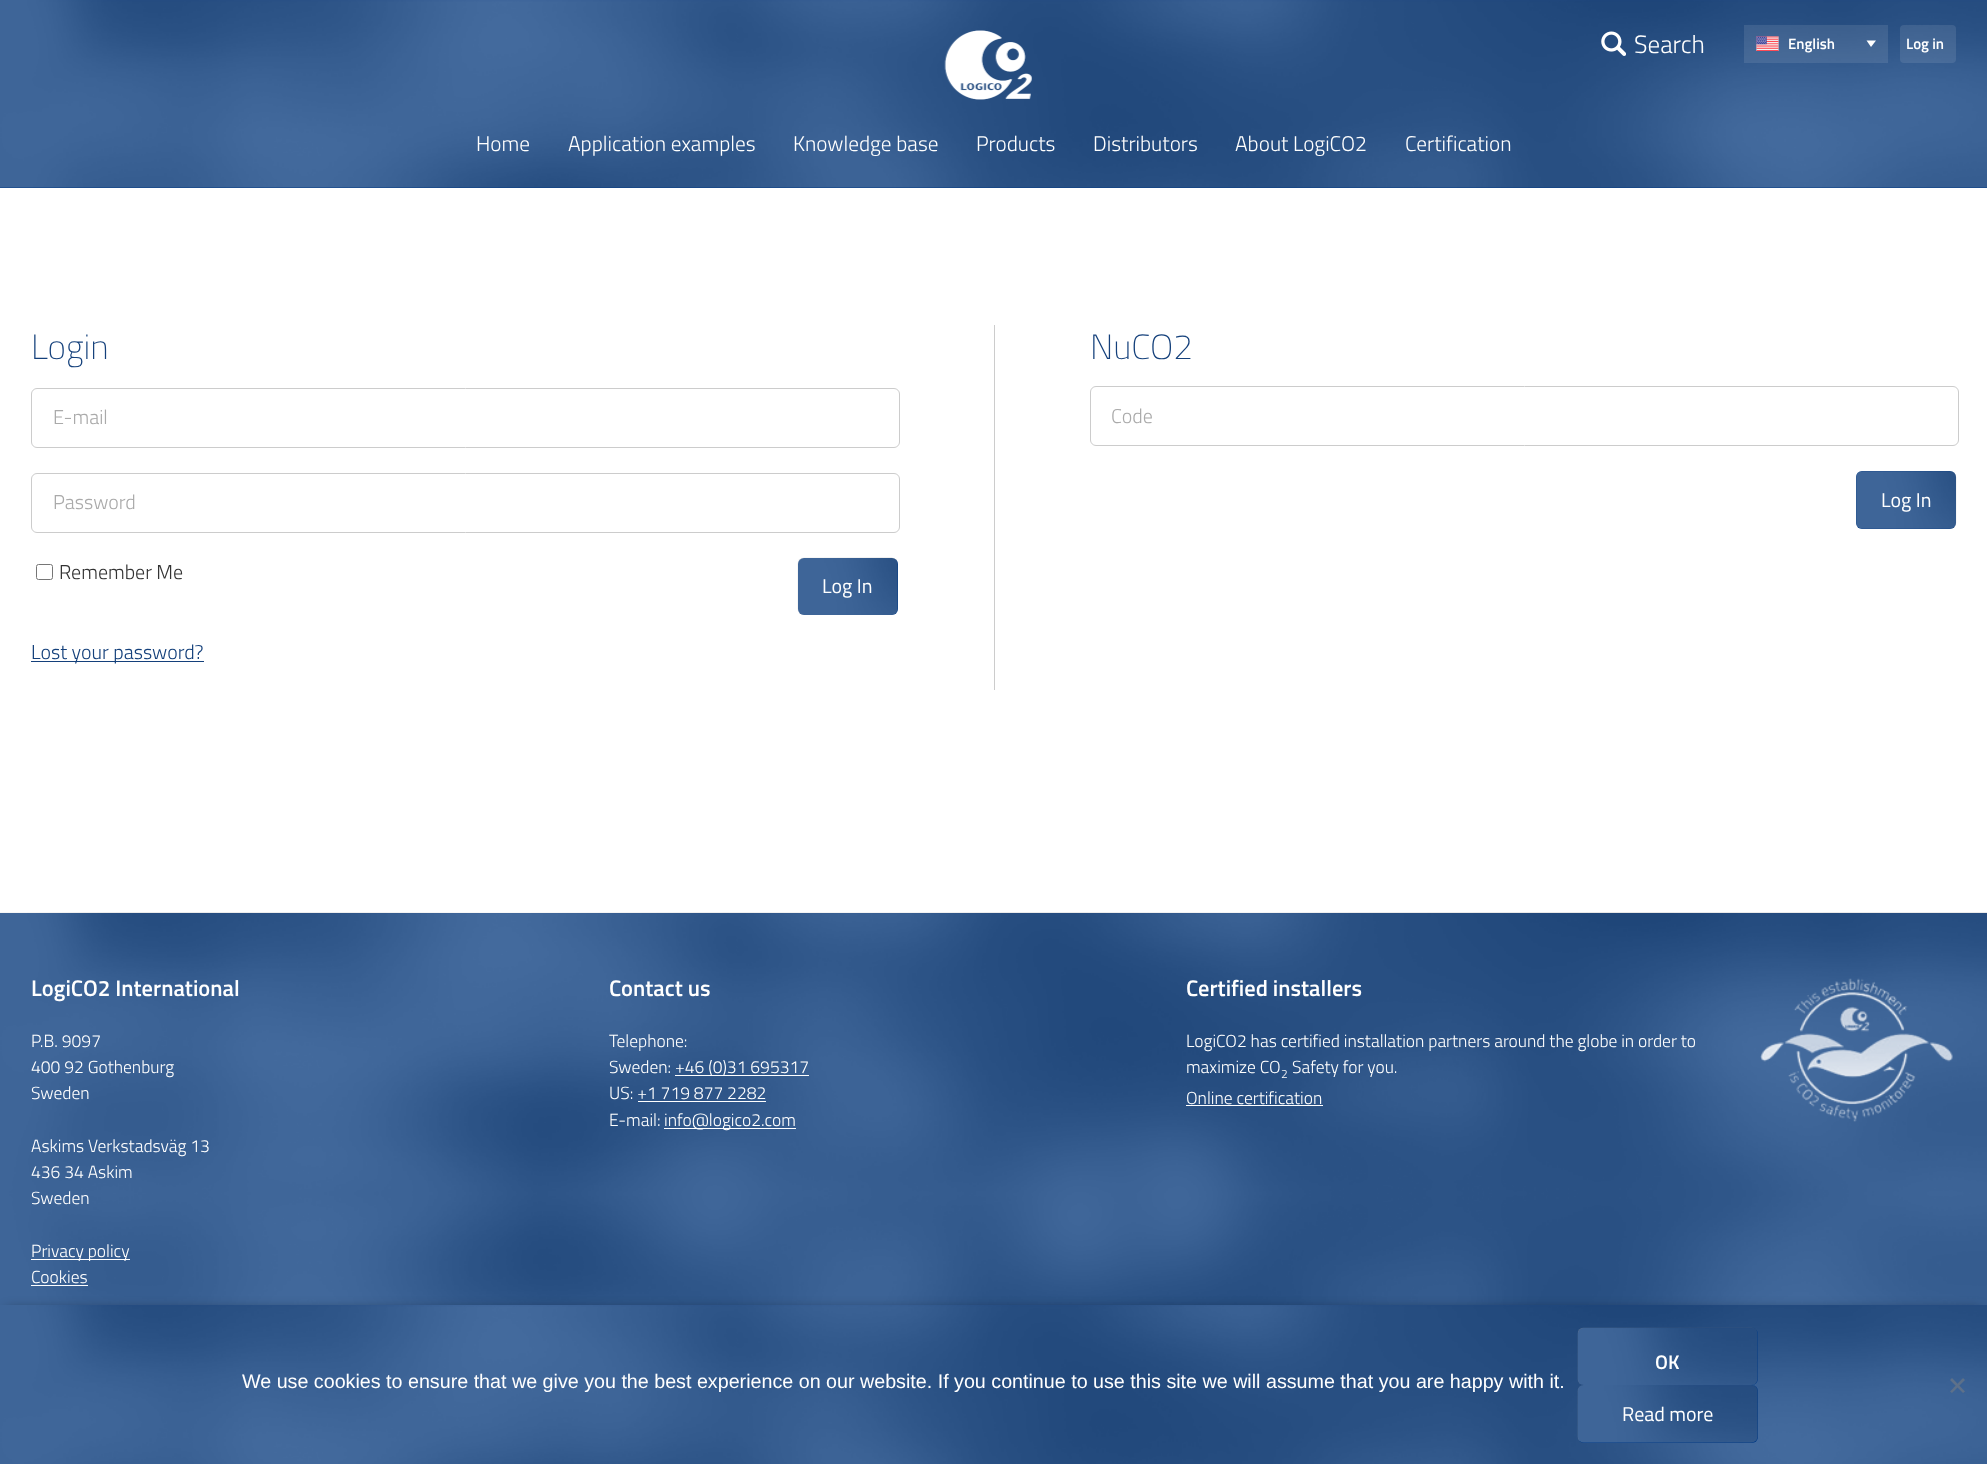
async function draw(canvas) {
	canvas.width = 1987;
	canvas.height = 1464;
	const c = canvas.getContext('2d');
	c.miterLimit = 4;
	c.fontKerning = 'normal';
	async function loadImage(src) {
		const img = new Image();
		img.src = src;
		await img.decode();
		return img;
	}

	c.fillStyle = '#fff';
	c.fillRect(0, 0, 1987, 1464);
	c.fillStyle = '#073e87';
	c.fillRect(0, 0, 1987, 188);
	c.drawImage(await loadImage('img1.png'), 0, 0, 1987, 188);
	c.drawImage(await loadImage('img2.png'), 944, 30, 88, 70);
	c.drawImage(await loadImage('img3.png'), 1601, 31, 25, 25);
	c.font = '300 25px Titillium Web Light';
	c.fillStyle = '#fff';
	c.fillText('Search', 1634, 53);
	c.fillStyle = '#ffffff1a';
	c.fillRect(1744, 25, 144, 38);
	c.fillStyle = '#fff';
	c.beginPath();
	c.moveTo(1876, 40.5);
	c.lineTo(1871, 47);
	c.lineTo(1866.5, 40.5);
	c.fill();
	c.drawImage(await loadImage('img4.png'), 1756, 36, 23, 15);
	c.font = '600 15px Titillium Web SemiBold';
	c.fillText('English', 1788, 49);
	c.fillStyle = '#ffffff1a';
	c.beginPath();
	c.roundRect(1900, 25, 56, 38, 4);
	c.fill();
	c.fillStyle = '#fff';
	c.fillText('Log in', 1906, 49);
	c.font = '300 21.25px Titillium Web Light';
	for (const [text, x, y] of [
		['Home', 476, 151],
		['Application examples', 568, 151],
		['Knowledge base', 793, 151],
		['Products', 976, 151],
		['Distributors', 1093, 151],
		['About LogiCO2', 1235, 151],
		['Certification', 1405, 151],
	]) {
		c.fillText(text, x, y);
	}
	c.fillStyle = '#ccc';
	c.fillRect(994, 325, 1, 365);
	c.font = '200 35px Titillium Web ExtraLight';
	c.fillStyle = '#14407b';
	c.fillText('Login', 31, 359);
	c.beginPath();
	c.roundRect(31.5, 388.5, 868, 59, 5.5);
	c.strokeStyle = '#ccc';
	c.stroke();
	c.font = '300 20px Titillium Web Light';
	c.fillStyle = '#aaa';
	c.fillText('E-mail', 53, 424);
	c.beginPath();
	c.roundRect(31.5, 473.5, 868, 59, 5.5);
	c.stroke();
	c.fillText('Password', 53, 509);
	c.beginPath();
	c.roundRect(36.5, 564.5, 16, 15, 2);
	c.strokeStyle = '#767676';
	c.stroke();
	c.fillStyle = '#333';
	c.fillText('Remember Me', 59, 579);
	c.fillStyle = '#073e87';
	c.beginPath();
	c.roundRect(798, 558, 100, 57, 6);
	c.fill();
	c.drawImage(await loadImage('img5.png'), 797, 557, 101, 58);
	c.font = '20px Titillium Web';
	c.fillStyle = '#fff';
	c.fillText('Log In', 822, 593);
	c.fillStyle = '#14407b';
	c.fillRect(31, 661, 173, 1);
	c.font = '300 20px Titillium Web Light';
	c.fillText('Lost your password?', 31, 659);
	c.font = '200 35px Titillium Web ExtraLight';
	c.fillText('NuCO2', 1090, 359);
	c.beginPath();
	c.roundRect(1090.5, 386.5, 868, 59, 5.5);
	c.strokeStyle = '#ccc';
	c.stroke();
	c.font = '300 20px Titillium Web Light';
	c.fillStyle = '#aaa';
	c.fillText('Code', 1111, 423);
	c.fillStyle = '#073e87';
	c.beginPath();
	c.roundRect(1856, 471, 100, 58, 6);
	c.fill();
	c.drawImage(await loadImage('img6.png'), 1856, 471, 101, 58);
	c.font = '20px Titillium Web';
	c.fillStyle = '#fff';
	c.fillText('Log In', 1881, 507);
	c.fillStyle = '#073e87';
	c.fillRect(0, 913, 1987, 392);
	c.drawImage(await loadImage('img7.png'), 0, 912, 1987, 393);
	c.font = '600 22.5px Titillium Web SemiBold';
	c.fillStyle = '#fff';
	c.fillText('LogiCO2 International', 31, 996);
	c.font = '300 17.5px Titillium Web Light';
	for (const [text, x, y] of [
		['P.B. 9097', 31, 1047],
		['400 92 Gothenburg', 31, 1073],
		['Sweden', 31, 1099],
		['Askims Verkstadsväg 13', 31, 1152],
		['436 34 Askim', 31, 1178],
		['Sweden', 31, 1204],
	]) {
		c.fillText(text, x, y);
	}
	c.fillRect(31, 1259, 99, 1);
	c.fillText('Privacy policy', 31, 1257);
	c.fillText('Cookies', 31, 1283);
	c.fillRect(31, 1285, 57, 1);
	c.font = '600 22.5px Titillium Web SemiBold';
	c.fillText('Contact us', 609, 996);
	c.font = '300 17.5px Titillium Web Light';
	c.fillText('Telephone:', 609, 1047);
	c.fillText('Sweden:', 609, 1073);
	c.fillRect(675, 1075, 134, 1);
	c.fillText('+46 (0)31 695317', 675, 1073);
	c.fillText('US: +1 719 877 2282', 609, 1099);
	c.fillRect(638, 1101, 128, 1);
	c.fillText('E-mail:', 609, 1126);
	c.fillRect(664, 1128, 132, 1);
	c.fillText('info@logico2.com', 664, 1126);
	c.font = '600 22.5px Titillium Web SemiBold';
	c.fillText('Certified installers', 1186, 996);
	c.drawImage(await loadImage('img8.png'), 1760, 978, 193, 144);
	c.font = '300 17.5px Titillium Web Light';
	c.fillText('LogiCO2 has certified installation partners around the globe in order to', 1186, 1047);
	c.fillText('maximize CO', 1186, 1073);
	c.font = '300 12px Titillium Web Light';
	c.fillText('2', 1281, 1078);
	c.font = '300 17.5px Titillium Web Light';
	c.fillText('Safety for you.', 1292, 1073);
	c.fillText('Online certification', 1186, 1104);
	c.fillRect(1186, 1105, 137, 1);
	c.fillStyle = '#00000066';
	c.filter = 'blur(6px)';
	c.beginPath();
	c.rect(6, 1309, 1975, 147);
	c.fill();
	c.filter = 'none';
	c.fillStyle = '#073e87';
	c.fillRect(0, 1305, 1987, 159);
	c.drawImage(await loadImage('img9.png'), 0, 1305, 1987, 159);
	c.font = '19.7px Liberation Sans';
	c.fillStyle = '#fff';
	c.fillText('We use cookies to ensure that we give you the best experience on our website. If you continue to use this site we will assume that you are happy with it.', 242, 1388);
	c.fillStyle = '#073e87';
	c.beginPath();
	c.roundRect(1578, 1328, 180, 57, 6);
	c.fill();
	c.drawImage(await loadImage('img10.png'), 1577, 1327, 181, 58);
	c.font = '600 19.7px Titillium Web SemiBold';
	c.fillStyle = '#fff';
	c.fillText('OK', 1655, 1369);
	c.fillStyle = '#073e87';
	c.beginPath();
	c.roundRect(1578, 1385, 180, 58, 6);
	c.fill();
	c.drawImage(await loadImage('img11.png'), 1577, 1385, 181, 58);
	c.font = '20px Titillium Web';
	c.fillStyle = '#fff';
	c.fillText('Read more', 1622, 1421);
	c.fillStyle = '#80808080';
	c.beginPath();
	c.moveTo(1963, 1378);
	c.lineTo(1965, 1380);
	c.lineTo(1952, 1393);
	c.lineTo(1950, 1391.5);
	c.closePath();
	c.fill();
	c.fillStyle = '#5e718a';
	c.beginPath();
	c.moveTo(1950, 1380);
	c.lineTo(1952, 1378);
	c.lineTo(1965, 1391.5);
	c.lineTo(1963, 1393);
	c.closePath();
	c.fill();
}

draw(document.querySelector('canvas'));
